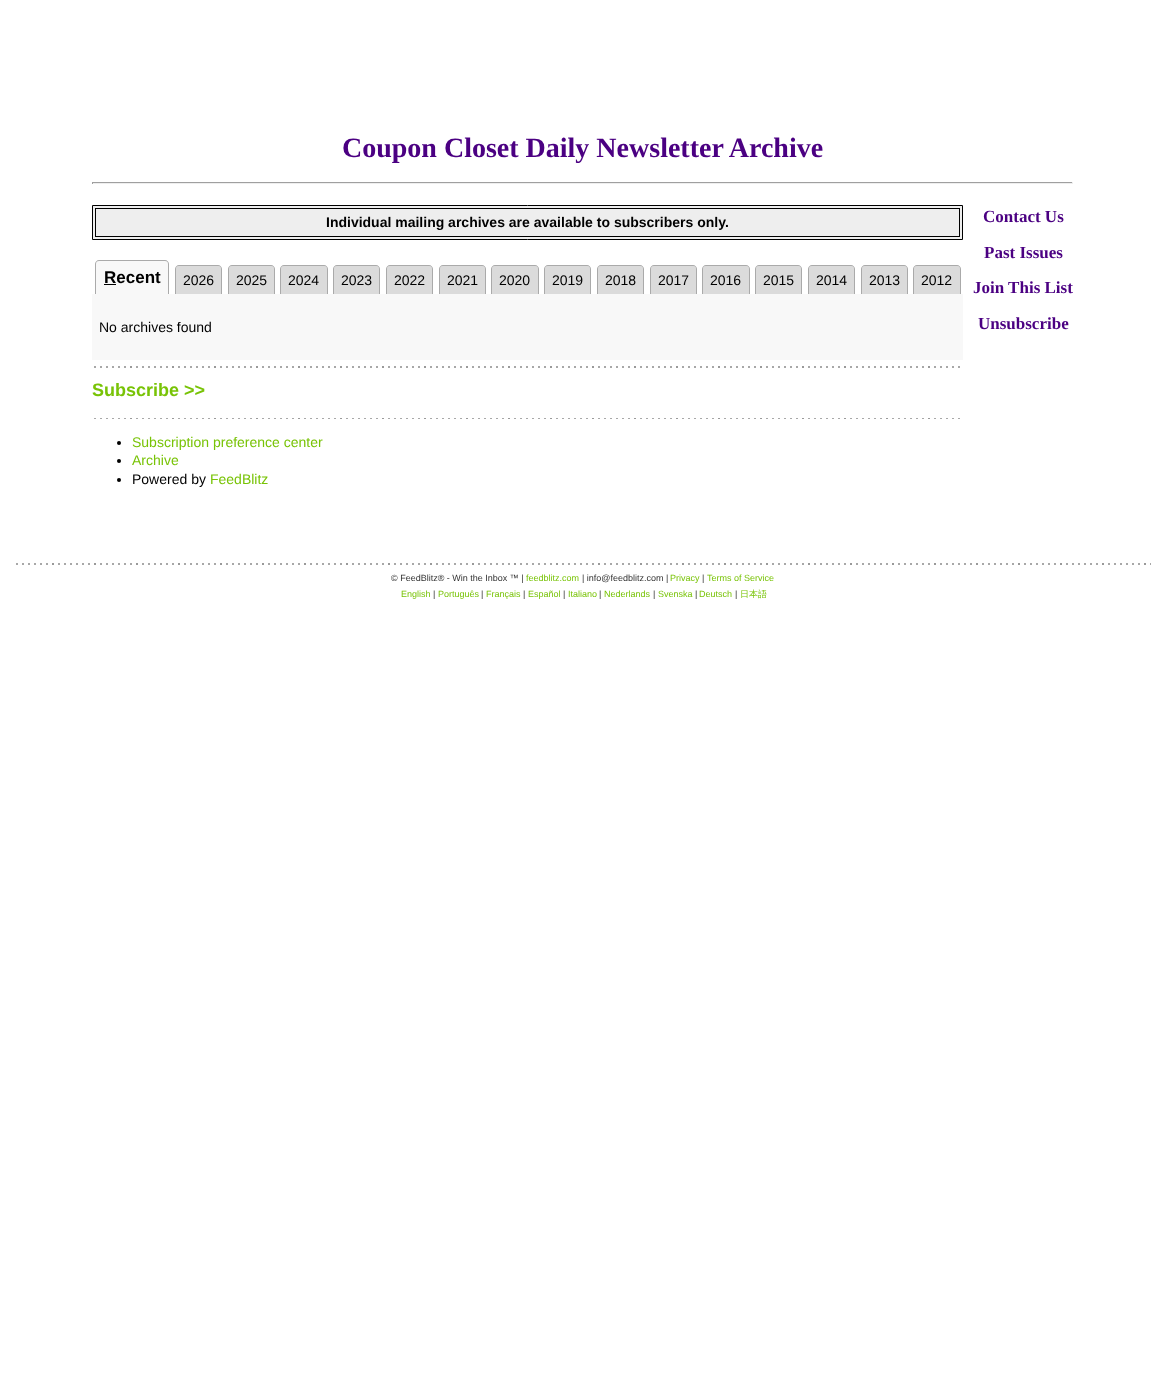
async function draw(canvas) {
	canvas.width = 1165;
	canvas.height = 1399;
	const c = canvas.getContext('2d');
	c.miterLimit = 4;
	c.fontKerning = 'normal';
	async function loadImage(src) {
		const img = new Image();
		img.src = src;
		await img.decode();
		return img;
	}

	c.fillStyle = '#fff';
	c.fillRect(0, 0, 1165, 1399);
	c.font = 'bold 28px Liberation Serif';
	c.fillStyle = '#4b0082';
	c.fillText('Coupon Closet Daily Newsletter Archive', 342, 157);
	for (const [x, y, w, h, color] of [
		[92, 182, 981, 1, '#9f9f9f'],
		[1072, 182, 1, 2, '#eee'],
		[92, 183, 981, 1, '#eee'],
		[92, 182, 1, 2, '#9f9f9f'],
	]) {
		c.fillStyle = color;
		c.fillRect(x, y, w, h);
	}
	c.fillStyle = '#eee';
	c.beginPath();
	c.rect(92.5, 205.5, 870, 34);
	c.fill();
	c.strokeStyle = '#000';
	c.stroke();
	c.strokeRect(95.5, 208.5, 864, 28);
	c.font = 'bold 14px Liberation Sans';
	c.fillStyle = '#000';
	c.fillText('Individual mailing archives are available to subscribers only.', 326, 227);
	c.fillStyle = '#f8f8f8';
	c.beginPath();
	c.roundRect(96, 261, 72, 33, [3, 3, 0, 0]);
	c.fill();
	c.fillStyle = '#aaa';
	c.beginPath();
	c.moveTo(99, 260);
	c.lineTo(165, 260);
	c.bezierCurveTo(167, 260, 169, 262, 169, 264);
	c.lineTo(169, 294);
	c.lineTo(95, 294);
	c.lineTo(95, 264);
	c.bezierCurveTo(95, 262, 97, 260, 99, 260);
	c.closePath();
	c.moveTo(99, 261);
	c.lineTo(165, 261);
	c.bezierCurveTo(167, 261, 168, 262, 168, 264);
	c.lineTo(168, 294);
	c.lineTo(96, 294);
	c.lineTo(96, 264);
	c.bezierCurveTo(96, 262, 97, 261, 99, 261);
	c.closePath();
	c.fill('evenodd');
	c.font = 'bold 17px Liberation Sans';
	c.fillStyle = '#000';
	c.fillText('Recent', 104, 283);
	c.fillRect(104, 284, 12, 1);
	c.fillStyle = '#dbdbdb';
	c.beginPath();
	c.roundRect(176, 266, 45, 28, [3, 3, 0, 0]);
	c.fill();
	c.fillStyle = '#aaa';
	c.beginPath();
	c.moveTo(179, 265);
	c.lineTo(218, 265);
	c.bezierCurveTo(220, 265, 222, 267, 222, 269);
	c.lineTo(222, 294);
	c.lineTo(175, 294);
	c.lineTo(175, 269);
	c.bezierCurveTo(175, 267, 177, 265, 179, 265);
	c.closePath();
	c.moveTo(179, 266);
	c.lineTo(218, 266);
	c.bezierCurveTo(220, 266, 221, 267, 221, 269);
	c.lineTo(221, 294);
	c.lineTo(176, 294);
	c.lineTo(176, 269);
	c.bezierCurveTo(176, 267, 177, 266, 179, 266);
	c.closePath();
	c.fill('evenodd');
	c.font = '14px Liberation Sans';
	c.fillStyle = '#000';
	c.fillText('2026', 183, 285);
	c.fillStyle = '#dbdbdb';
	c.beginPath();
	c.roundRect(229, 266, 45, 28, [3, 3, 0, 0]);
	c.fill();
	c.fillStyle = '#aaa';
	c.beginPath();
	c.moveTo(232, 265);
	c.lineTo(271, 265);
	c.bezierCurveTo(273, 265, 275, 267, 275, 269);
	c.lineTo(275, 294);
	c.lineTo(228, 294);
	c.lineTo(228, 269);
	c.bezierCurveTo(228, 267, 230, 265, 232, 265);
	c.closePath();
	c.moveTo(232, 266);
	c.lineTo(271, 266);
	c.bezierCurveTo(273, 266, 274, 267, 274, 269);
	c.lineTo(274, 294);
	c.lineTo(229, 294);
	c.lineTo(229, 269);
	c.bezierCurveTo(229, 267, 230, 266, 232, 266);
	c.closePath();
	c.fill('evenodd');
	c.fillStyle = '#000';
	c.fillText('2025', 236, 285);
	c.fillStyle = '#dbdbdb';
	c.beginPath();
	c.roundRect(281, 266, 46, 28, [3, 3, 0, 0]);
	c.fill();
	c.fillStyle = '#aaa';
	c.beginPath();
	c.moveTo(284, 265);
	c.lineTo(324, 265);
	c.bezierCurveTo(326, 265, 328, 267, 328, 269);
	c.lineTo(328, 294);
	c.lineTo(280, 294);
	c.lineTo(280, 269);
	c.bezierCurveTo(280, 267, 282, 265, 284, 265);
	c.closePath();
	c.moveTo(284, 266);
	c.lineTo(324, 266);
	c.bezierCurveTo(326, 266, 327, 267, 327, 269);
	c.lineTo(327, 294);
	c.lineTo(281, 294);
	c.lineTo(281, 269);
	c.bezierCurveTo(281, 267, 282, 266, 284, 266);
	c.closePath();
	c.fill('evenodd');
	c.fillStyle = '#000';
	c.fillText('2024', 288, 285);
	c.fillStyle = '#dbdbdb';
	c.beginPath();
	c.roundRect(334, 266, 45, 28, [3, 3, 0, 0]);
	c.fill();
	c.fillStyle = '#aaa';
	c.beginPath();
	c.moveTo(337, 265);
	c.lineTo(376, 265);
	c.bezierCurveTo(378, 265, 380, 267, 380, 269);
	c.lineTo(380, 294);
	c.lineTo(333, 294);
	c.lineTo(333, 269);
	c.bezierCurveTo(333, 267, 335, 265, 337, 265);
	c.closePath();
	c.moveTo(337, 266);
	c.lineTo(376, 266);
	c.bezierCurveTo(378, 266, 379, 267, 379, 269);
	c.lineTo(379, 294);
	c.lineTo(334, 294);
	c.lineTo(334, 269);
	c.bezierCurveTo(334, 267, 335, 266, 337, 266);
	c.closePath();
	c.fill('evenodd');
	c.fillStyle = '#000';
	c.fillText('2023', 341, 285);
	c.fillStyle = '#dbdbdb';
	c.beginPath();
	c.roundRect(387, 266, 45, 28, [3, 3, 0, 0]);
	c.fill();
	c.fillStyle = '#aaa';
	c.beginPath();
	c.moveTo(390, 265);
	c.lineTo(429, 265);
	c.bezierCurveTo(431, 265, 433, 267, 433, 269);
	c.lineTo(433, 294);
	c.lineTo(386, 294);
	c.lineTo(386, 269);
	c.bezierCurveTo(386, 267, 388, 265, 390, 265);
	c.closePath();
	c.moveTo(390, 266);
	c.lineTo(429, 266);
	c.bezierCurveTo(431, 266, 432, 267, 432, 269);
	c.lineTo(432, 294);
	c.lineTo(387, 294);
	c.lineTo(387, 269);
	c.bezierCurveTo(387, 267, 388, 266, 390, 266);
	c.closePath();
	c.fill('evenodd');
	c.fillStyle = '#000';
	c.fillText('2022', 394, 285);
	c.fillStyle = '#dbdbdb';
	c.beginPath();
	c.roundRect(440, 266, 45, 28, [3, 3, 0, 0]);
	c.fill();
	c.fillStyle = '#aaa';
	c.beginPath();
	c.moveTo(443, 265);
	c.lineTo(482, 265);
	c.bezierCurveTo(484, 265, 486, 267, 486, 269);
	c.lineTo(486, 294);
	c.lineTo(439, 294);
	c.lineTo(439, 269);
	c.bezierCurveTo(439, 267, 441, 265, 443, 265);
	c.closePath();
	c.moveTo(443, 266);
	c.lineTo(482, 266);
	c.bezierCurveTo(484, 266, 485, 267, 485, 269);
	c.lineTo(485, 294);
	c.lineTo(440, 294);
	c.lineTo(440, 269);
	c.bezierCurveTo(440, 267, 441, 266, 443, 266);
	c.closePath();
	c.fill('evenodd');
	c.fillStyle = '#000';
	c.fillText('2021', 447, 285);
	c.fillStyle = '#dbdbdb';
	c.beginPath();
	c.roundRect(492, 266, 46, 28, [3, 3, 0, 0]);
	c.fill();
	c.fillStyle = '#aaa';
	c.beginPath();
	c.moveTo(495, 265);
	c.lineTo(535, 265);
	c.bezierCurveTo(537, 265, 539, 267, 539, 269);
	c.lineTo(539, 294);
	c.lineTo(491, 294);
	c.lineTo(491, 269);
	c.bezierCurveTo(491, 267, 493, 265, 495, 265);
	c.closePath();
	c.moveTo(495, 266);
	c.lineTo(535, 266);
	c.bezierCurveTo(537, 266, 538, 267, 538, 269);
	c.lineTo(538, 294);
	c.lineTo(492, 294);
	c.lineTo(492, 269);
	c.bezierCurveTo(492, 267, 493, 266, 495, 266);
	c.closePath();
	c.fill('evenodd');
	c.fillStyle = '#000';
	c.fillText('2020', 499, 285);
	c.fillStyle = '#dbdbdb';
	c.beginPath();
	c.roundRect(545, 266, 45, 28, [3, 3, 0, 0]);
	c.fill();
	c.fillStyle = '#aaa';
	c.beginPath();
	c.moveTo(548, 265);
	c.lineTo(587, 265);
	c.bezierCurveTo(589, 265, 591, 267, 591, 269);
	c.lineTo(591, 294);
	c.lineTo(544, 294);
	c.lineTo(544, 269);
	c.bezierCurveTo(544, 267, 546, 265, 548, 265);
	c.closePath();
	c.moveTo(548, 266);
	c.lineTo(587, 266);
	c.bezierCurveTo(589, 266, 590, 267, 590, 269);
	c.lineTo(590, 294);
	c.lineTo(545, 294);
	c.lineTo(545, 269);
	c.bezierCurveTo(545, 267, 546, 266, 548, 266);
	c.closePath();
	c.fill('evenodd');
	c.fillStyle = '#000';
	c.fillText('2019', 552, 285);
	c.fillStyle = '#dbdbdb';
	c.beginPath();
	c.roundRect(598, 266, 45, 28, [3, 3, 0, 0]);
	c.fill();
	c.fillStyle = '#aaa';
	c.beginPath();
	c.moveTo(601, 265);
	c.lineTo(640, 265);
	c.bezierCurveTo(642, 265, 644, 267, 644, 269);
	c.lineTo(644, 294);
	c.lineTo(597, 294);
	c.lineTo(597, 269);
	c.bezierCurveTo(597, 267, 599, 265, 601, 265);
	c.closePath();
	c.moveTo(601, 266);
	c.lineTo(640, 266);
	c.bezierCurveTo(642, 266, 643, 267, 643, 269);
	c.lineTo(643, 294);
	c.lineTo(598, 294);
	c.lineTo(598, 269);
	c.bezierCurveTo(598, 267, 599, 266, 601, 266);
	c.closePath();
	c.fill('evenodd');
	c.fillStyle = '#000';
	c.fillText('2018', 605, 285);
	c.fillStyle = '#dbdbdb';
	c.beginPath();
	c.roundRect(651, 266, 45, 28, [3, 3, 0, 0]);
	c.fill();
	c.fillStyle = '#aaa';
	c.beginPath();
	c.moveTo(654, 265);
	c.lineTo(693, 265);
	c.bezierCurveTo(695, 265, 697, 267, 697, 269);
	c.lineTo(697, 294);
	c.lineTo(650, 294);
	c.lineTo(650, 269);
	c.bezierCurveTo(650, 267, 652, 265, 654, 265);
	c.closePath();
	c.moveTo(654, 266);
	c.lineTo(693, 266);
	c.bezierCurveTo(695, 266, 696, 267, 696, 269);
	c.lineTo(696, 294);
	c.lineTo(651, 294);
	c.lineTo(651, 269);
	c.bezierCurveTo(651, 267, 652, 266, 654, 266);
	c.closePath();
	c.fill('evenodd');
	c.fillStyle = '#000';
	c.fillText('2017', 658, 285);
	c.fillStyle = '#dbdbdb';
	c.beginPath();
	c.roundRect(703, 266, 46, 28, [3, 3, 0, 0]);
	c.fill();
	c.fillStyle = '#aaa';
	c.beginPath();
	c.moveTo(706, 265);
	c.lineTo(746, 265);
	c.bezierCurveTo(748, 265, 750, 267, 750, 269);
	c.lineTo(750, 294);
	c.lineTo(702, 294);
	c.lineTo(702, 269);
	c.bezierCurveTo(702, 267, 704, 265, 706, 265);
	c.closePath();
	c.moveTo(706, 266);
	c.lineTo(746, 266);
	c.bezierCurveTo(748, 266, 749, 267, 749, 269);
	c.lineTo(749, 294);
	c.lineTo(703, 294);
	c.lineTo(703, 269);
	c.bezierCurveTo(703, 267, 704, 266, 706, 266);
	c.closePath();
	c.fill('evenodd');
	c.fillStyle = '#000';
	c.fillText('2016', 710, 285);
	c.fillStyle = '#dbdbdb';
	c.beginPath();
	c.roundRect(756, 266, 45, 28, [3, 3, 0, 0]);
	c.fill();
	c.fillStyle = '#aaa';
	c.beginPath();
	c.moveTo(759, 265);
	c.lineTo(798, 265);
	c.bezierCurveTo(800, 265, 802, 267, 802, 269);
	c.lineTo(802, 294);
	c.lineTo(755, 294);
	c.lineTo(755, 269);
	c.bezierCurveTo(755, 267, 757, 265, 759, 265);
	c.closePath();
	c.moveTo(759, 266);
	c.lineTo(798, 266);
	c.bezierCurveTo(800, 266, 801, 267, 801, 269);
	c.lineTo(801, 294);
	c.lineTo(756, 294);
	c.lineTo(756, 269);
	c.bezierCurveTo(756, 267, 757, 266, 759, 266);
	c.closePath();
	c.fill('evenodd');
	c.fillStyle = '#000';
	c.fillText('2015', 763, 285);
	c.fillStyle = '#dbdbdb';
	c.beginPath();
	c.roundRect(809, 266, 45, 28, [3, 3, 0, 0]);
	c.fill();
	c.fillStyle = '#aaa';
	c.beginPath();
	c.moveTo(812, 265);
	c.lineTo(851, 265);
	c.bezierCurveTo(853, 265, 855, 267, 855, 269);
	c.lineTo(855, 294);
	c.lineTo(808, 294);
	c.lineTo(808, 269);
	c.bezierCurveTo(808, 267, 810, 265, 812, 265);
	c.closePath();
	c.moveTo(812, 266);
	c.lineTo(851, 266);
	c.bezierCurveTo(853, 266, 854, 267, 854, 269);
	c.lineTo(854, 294);
	c.lineTo(809, 294);
	c.lineTo(809, 269);
	c.bezierCurveTo(809, 267, 810, 266, 812, 266);
	c.closePath();
	c.fill('evenodd');
	c.fillStyle = '#000';
	c.fillText('2014', 816, 285);
	c.fillStyle = '#dbdbdb';
	c.beginPath();
	c.roundRect(862, 266, 45, 28, [3, 3, 0, 0]);
	c.fill();
	c.fillStyle = '#aaa';
	c.beginPath();
	c.moveTo(865, 265);
	c.lineTo(904, 265);
	c.bezierCurveTo(906, 265, 908, 267, 908, 269);
	c.lineTo(908, 294);
	c.lineTo(861, 294);
	c.lineTo(861, 269);
	c.bezierCurveTo(861, 267, 863, 265, 865, 265);
	c.closePath();
	c.moveTo(865, 266);
	c.lineTo(904, 266);
	c.bezierCurveTo(906, 266, 907, 267, 907, 269);
	c.lineTo(907, 294);
	c.lineTo(862, 294);
	c.lineTo(862, 269);
	c.bezierCurveTo(862, 267, 863, 266, 865, 266);
	c.closePath();
	c.fill('evenodd');
	c.fillStyle = '#000';
	c.fillText('2013', 869, 285);
	c.fillStyle = '#dbdbdb';
	c.beginPath();
	c.roundRect(914, 266, 46, 28, [3, 3, 0, 0]);
	c.fill();
	c.fillStyle = '#aaa';
	c.beginPath();
	c.moveTo(917, 265);
	c.lineTo(957, 265);
	c.bezierCurveTo(959, 265, 961, 267, 961, 269);
	c.lineTo(961, 294);
	c.lineTo(913, 294);
	c.lineTo(913, 269);
	c.bezierCurveTo(913, 267, 915, 265, 917, 265);
	c.closePath();
	c.moveTo(917, 266);
	c.lineTo(957, 266);
	c.bezierCurveTo(959, 266, 960, 267, 960, 269);
	c.lineTo(960, 294);
	c.lineTo(914, 294);
	c.lineTo(914, 269);
	c.bezierCurveTo(914, 267, 915, 266, 917, 266);
	c.closePath();
	c.fill('evenodd');
	c.fillStyle = '#000';
	c.fillText('2012', 921, 285);
	c.fillStyle = '#f8f8f8';
	c.fillRect(92, 294, 871, 66);
	c.fillStyle = '#000';
	c.fillText('No archives found', 99, 332);
	c.drawImage(await loadImage('img1.png'), 94, 366, 866, 2);
	c.font = 'bold 18px Liberation Sans';
	c.fillStyle = '#78c306';
	c.fillText('Subscribe >>', 92, 396);
	c.drawImage(await loadImage('img2.png'), 94, 418, 866, 1);
	c.fillStyle = '#000';
	c.beginPath();
	c.arc(119, 443, 2, 0, 2 * Math.PI);
	c.fill();
	c.font = '14px Liberation Sans';
	c.fillStyle = '#78c306';
	c.fillText('Subscription preference center', 132, 447);
	c.fillStyle = '#000';
	c.beginPath();
	c.arc(119, 461, 2, 0, 2 * Math.PI);
	c.fill();
	c.fillStyle = '#78c306';
	c.fillText('Archive', 132, 465);
	c.fillStyle = '#000';
	c.beginPath();
	c.arc(119, 480, 2, 0, 2 * Math.PI);
	c.fill();
	c.fillText('Powered by', 132, 484);
	c.fillStyle = '#78c306';
	c.fillText('FeedBlitz', 210, 484);
	c.font = 'bold 17px Liberation Serif';
	c.fillStyle = '#4b0082';
	for (const [text, x, y] of [
		['Contact Us', 983, 222],
		['Past Issues', 984, 258],
		['Join This List', 973, 293],
		['Unsubscribe', 978, 329],
	]) {
		c.fillText(text, x, y);
	}
	c.drawImage(await loadImage('img3.png'), 16, 563, 1135, 2);
	c.font = '9px Liberation Sans';
	c.fillStyle = '#333';
	c.fillText('© FeedBlitz® - Win the Inbox ™ |', 391, 581);
	c.fillStyle = '#78c306';
	c.fillText('feedblitz.com', 526, 581);
	c.fillStyle = '#333';
	c.fillText('| info@feedblitz.com |', 582, 581);
	c.fillStyle = '#78c306';
	c.fillText('Privacy', 670, 581);
	c.fillStyle = '#333';
	c.fillText('|', 702, 581);
	c.fillStyle = '#78c306';
	c.fillText('Terms of Service', 707, 581);
	c.fillText('English', 401, 597);
	c.fillStyle = '#333';
	c.fillText('|', 433, 597);
	c.fillStyle = '#78c306';
	c.fillText('Português', 438, 597);
	c.fillStyle = '#333';
	c.fillText('|', 481, 597);
	c.fillStyle = '#78c306';
	c.fillText('Français', 486, 597);
	c.fillStyle = '#333';
	c.fillText('|', 523, 597);
	c.fillStyle = '#78c306';
	c.fillText('Español', 528, 597);
	c.fillStyle = '#333';
	c.fillText('|', 563, 597);
	c.fillStyle = '#78c306';
	c.fillText('Italiano', 568, 597);
	c.fillStyle = '#333';
	c.fillText('|', 599, 597);
	c.fillStyle = '#78c306';
	c.fillText('Nederlands', 604, 597);
	c.fillStyle = '#333';
	c.fillText('|', 653, 597);
	c.fillStyle = '#78c306';
	c.fillText('Svenska', 658, 597);
	c.fillStyle = '#333';
	c.fillText('|', 695, 597);
	c.fillStyle = '#78c306';
	c.fillText('Deutsch', 699, 597);
	c.fillStyle = '#333';
	c.fillText('|', 735, 597);
	c.font = '500 9px WenQuanYi Zen Hei';
	c.fillStyle = '#78c306';
	c.fillText('日本語', 740, 597);
}

draw(document.querySelector('canvas'));
